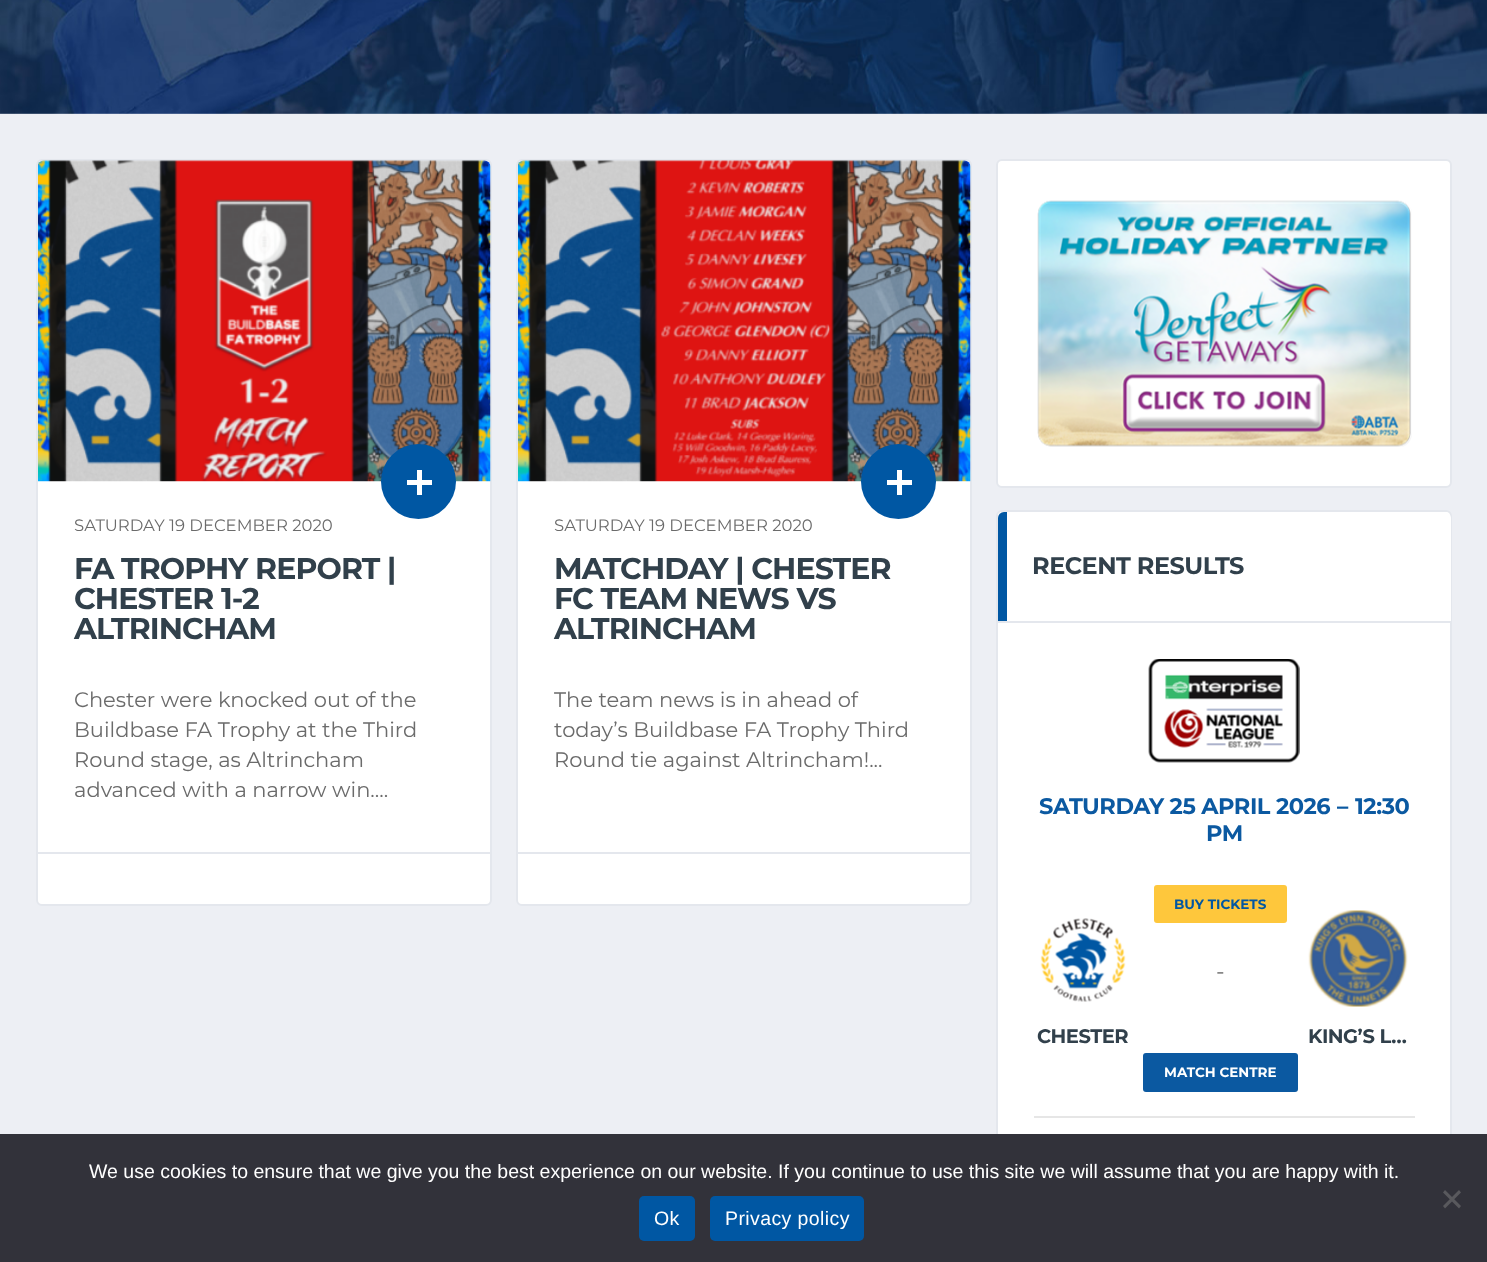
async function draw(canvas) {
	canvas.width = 1487;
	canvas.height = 1262;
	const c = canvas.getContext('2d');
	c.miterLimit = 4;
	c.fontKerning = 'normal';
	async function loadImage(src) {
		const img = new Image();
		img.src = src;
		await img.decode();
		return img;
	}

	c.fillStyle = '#edeff4';
	c.fillRect(0, 0, 1487, 1262);
	c.drawImage(await loadImage('img1.png'), 0, 0, 1487, 114);
	c.fillStyle = '#fff';
	c.beginPath();
	c.roundRect(37, 160, 454, 745, 5);
	c.fill();
	c.strokeStyle = '#e4e7ed';
	c.lineWidth = 2;
	c.stroke();
	c.drawImage(await loadImage('img2.png'), 38, 160, 453, 322);
	c.fillStyle = '#0057a3';
	c.beginPath();
	c.arc(418.5, 481.5, 37.5, 0, 2 * Math.PI);
	c.fill();
	c.fillStyle = '#fff';
	c.fillRect(407, 480, 25, 5);
	c.fillRect(417, 470, 5, 25);
	c.font = '100 16.5px Montserrat';
	c.fillStyle = '#6b6b6b';
	c.fillText('SATURDAY 19 DECEMBER 2020', 74, 531);
	c.letterSpacing = '-0.9px';
	c.font = 'bold 30px Montserrat';
	c.fillStyle = '#31404b';
	for (const [text, x, y] of [
		['FA TROPHY REPORT |', 74, 579],
		['CHESTER 1-2', 74, 609],
		['ALTRINCHAM', 74, 639],
	]) {
		c.fillText(text, x, y);
	}
	c.letterSpacing = '0px';
	c.font = '100 21px Montserrat';
	c.fillStyle = '#6b6b6b';
	for (const [text, x, y] of [
		['Chester were knocked out of the', 74, 707],
		['Buildbase FA Trophy at the Third', 74, 737],
		['Round stage, as Altrincham', 74, 767],
		['advanced with a narrow win....', 74, 797],
	]) {
		c.fillText(text, x, y);
	}
	c.fillStyle = '#e4e7ed';
	c.fillRect(38, 852, 453, 2);
	c.fillStyle = '#fff';
	c.beginPath();
	c.roundRect(517, 160, 454, 745, 5);
	c.fill();
	c.stroke();
	c.drawImage(await loadImage('img3.png'), 518, 160, 453, 322);
	c.fillStyle = '#0057a3';
	c.beginPath();
	c.arc(898.5, 481.5, 37.5, 0, 2 * Math.PI);
	c.fill();
	c.fillStyle = '#fff';
	c.fillRect(887, 480, 25, 5);
	c.fillRect(897, 470, 5, 25);
	c.font = '100 16.5px Montserrat';
	c.fillStyle = '#6b6b6b';
	c.fillText('SATURDAY 19 DECEMBER 2020', 554, 531);
	c.letterSpacing = '-0.9px';
	c.font = 'bold 30px Montserrat';
	c.fillStyle = '#31404b';
	for (const [text, x, y] of [
		['MATCHDAY | CHESTER', 554, 579],
		['FC TEAM NEWS VS', 554, 609],
		['ALTRINCHAM', 554, 639],
	]) {
		c.fillText(text, x, y);
	}
	c.letterSpacing = '0px';
	c.font = '100 21px Montserrat';
	c.fillStyle = '#6b6b6b';
	for (const [text, x, y] of [
		['The team news is in ahead of', 554, 707],
		['today’s Buildbase FA Trophy Third', 554, 737],
		['Round tie against Altrincham!...', 554, 767],
	]) {
		c.fillText(text, x, y);
	}
	c.fillStyle = '#e4e7ed';
	c.fillRect(518, 852, 453, 2);
	c.fillStyle = '#fff';
	c.beginPath();
	c.roundRect(997, 160, 454, 327, 5);
	c.fill();
	c.stroke();
	c.drawImage(await loadImage('img4.png'), 1037, 200, 375, 247);
	c.beginPath();
	c.roundRect(997, 511, 454, 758, 5);
	c.fill();
	c.stroke();
	c.beginPath();
	c.roundRect(998, 512, 453, 111, [6, 6, 0, 0]);
	c.fill();
	c.fillStyle = '#e4e7ed';
	c.fillRect(998, 621, 453, 2);
	c.fillStyle = '#0057a3';
	c.beginPath();
	c.roundRect(998, 512, 9, 109, [6, 0, 0, 0]);
	c.fill();
	c.letterSpacing = '-0.5px';
	c.font = 'bold 24px Montserrat';
	c.fillStyle = '#31404b';
	c.fillText('RECENT RESULTS', 1032, 574);
	c.drawImage(await loadImage('img5.png'), 1148, 659, 152, 104);
	c.letterSpacing = '-0.45px';
	c.font = 'bold 22.5px Montserrat';
	c.fillStyle = '#0b59a1';
	for (const [text, x, y] of [
		['SATURDAY 25 APRIL 2026', 1039, 814],
		['–', 1337, 814],
		['12:30', 1355, 814],
		['PM', 1206, 841],
	]) {
		c.fillText(text, x, y);
	}
	c.drawImage(await loadImage('img6.png'), 1040, 918, 86, 84);
	c.letterSpacing = '-0.5px';
	c.font = 'bold 19.5px Montserrat';
	c.fillStyle = '#31404b';
	c.fillText('CHESTER', 1037, 1043);
	c.fillStyle = '#fec73c';
	c.beginPath();
	c.roundRect(1154, 885, 133, 38, 3);
	c.fill();
	c.letterSpacing = '0px';
	c.font = 'bold 13.5px Montserrat';
	c.fillStyle = '#0057a3';
	c.fillText('BUY TICKETS', 1174, 909);
	c.font = '100 22.5px Montserrat';
	c.fillStyle = '#6b6b6b';
	c.fillText('-', 1216, 979);
	c.fillStyle = '#0b59a1';
	c.beginPath();
	c.roundRect(1143, 1053, 155, 39, 3);
	c.fill();
	c.font = 'bold 13.5px Montserrat';
	c.fillStyle = '#fff';
	c.fillText('MATCH CENTRE', 1164, 1077);
	c.drawImage(await loadImage('img7.png'), 1308, 910, 100, 97);
	c.letterSpacing = '-0.5px';
	c.font = 'bold 19.5px Montserrat';
	c.fillStyle = '#31404b';
	c.fillText('KING’S L…', 1308, 1043);
	c.fillStyle = '#e6e6e6';
	c.fillRect(1034, 1116, 381, 2);
	c.fillStyle = '#32323a';
	c.fillRect(0, 1134, 1487, 128);
	c.letterSpacing = '0px';
	c.font = '19.5px Liberation Sans';
	c.fillStyle = '#fff';
	c.fillText('We use cookies to ensure that we give you the best experience on our website. If you continue to use this site we will assume that you are happy with it.', 89, 1178);
	c.fillStyle = '#59595d';
	c.beginPath();
	c.moveTo(1459, 1190);
	c.lineTo(1461, 1192.5);
	c.lineTo(1445, 1208.5);
	c.lineTo(1443, 1206);
	c.closePath();
	c.fill();
	c.beginPath();
	c.moveTo(1443, 1192.5);
	c.lineTo(1445, 1190);
	c.lineTo(1461, 1206);
	c.lineTo(1459, 1208.5);
	c.closePath();
	c.fill();
	c.fillStyle = '#0057a3';
	c.beginPath();
	c.roundRect(639, 1196, 56, 45, 5);
	c.fill();
	c.letterSpacing = '0.4px';
	c.fillStyle = '#fff';
	c.fillText('Ok', 654, 1225);
	c.fillStyle = '#0057a3';
	c.beginPath();
	c.roundRect(710, 1196, 154, 45, 5);
	c.fill();
	c.fillStyle = '#fff';
	c.fillText('Privacy policy', 725, 1225);
}

draw(document.querySelector('canvas'));
